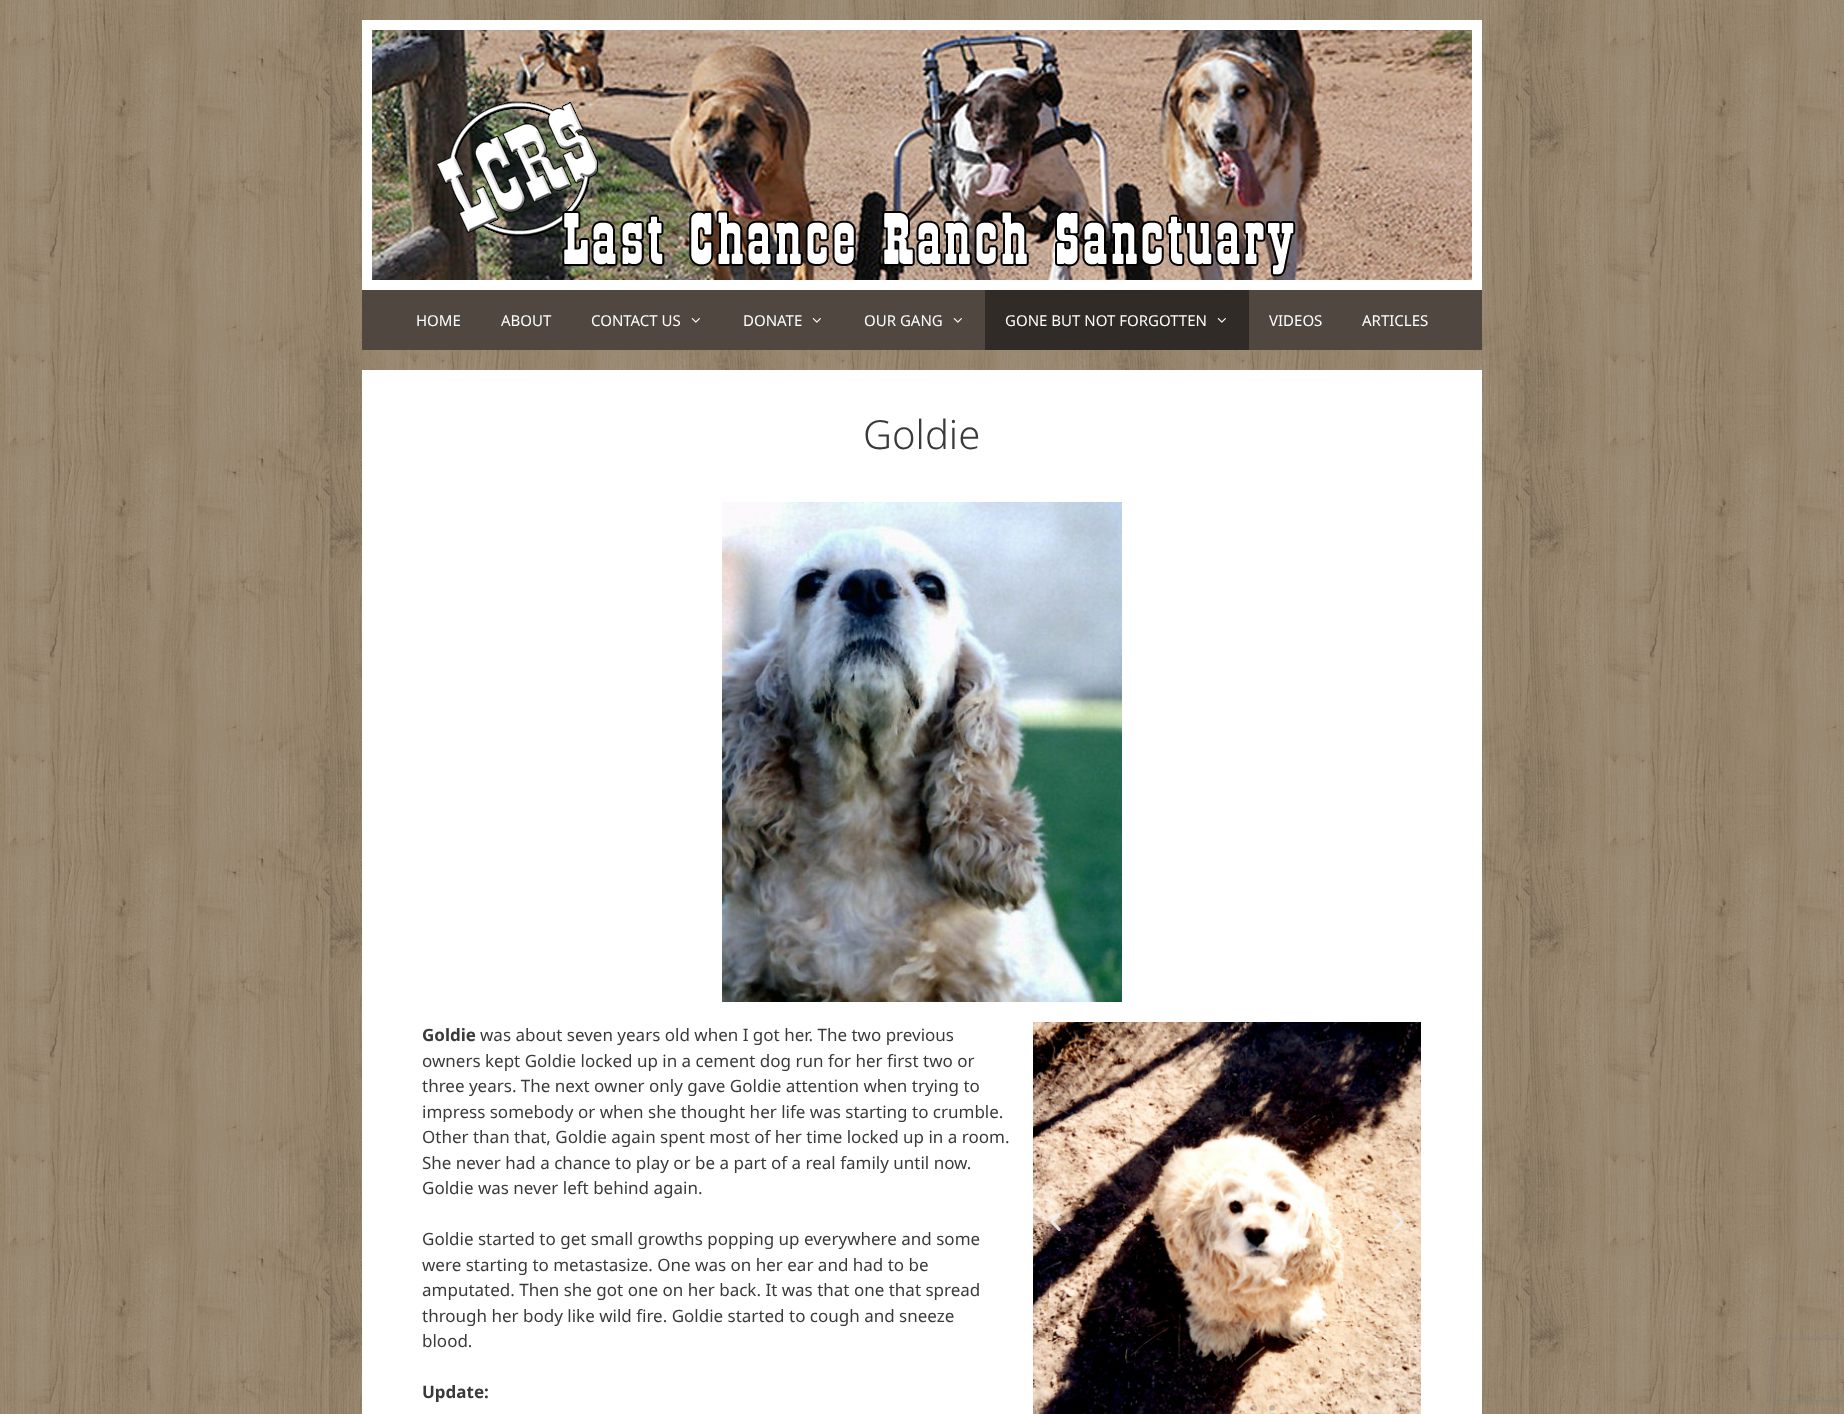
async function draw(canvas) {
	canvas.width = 1844;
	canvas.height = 1414;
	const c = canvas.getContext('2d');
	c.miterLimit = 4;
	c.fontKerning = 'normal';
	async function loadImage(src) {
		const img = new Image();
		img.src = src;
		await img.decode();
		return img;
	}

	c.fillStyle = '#fff';
	c.fillRect(0, 0, 1844, 1414);
	c.drawImage(await loadImage('img1.png'), 0, 0, 1844, 1414);
	c.fillRect(362, 20, 1120, 270);
	c.drawImage(await loadImage('img2.png'), 372, 30, 1100, 250);
	c.fillStyle = '#504741';
	c.fillRect(362, 290, 1120, 60);
	c.font = '15px Noto Sans';
	c.fillStyle = '#fff';
	for (const [text, x, y] of [
		['HOME', 416, 326],
		['ABOUT', 501, 326],
		['CONTACT US', 591, 326],
	]) {
		c.fillText(text, x, y);
	}
	c.drawImage(await loadImage('img3.png'), 691, 318, 9, 5);
	c.fillText('DONATE', 743, 326);
	c.drawImage(await loadImage('img3.png'), 812, 318, 9, 5);
	c.fillText('OUR GANG', 864, 326);
	c.drawImage(await loadImage('img3.png'), 953, 318, 9, 5);
	c.fillStyle = '#302b27';
	c.fillRect(985, 290, 264, 60);
	c.fillStyle = '#fff';
	c.fillText('GONE BUT NOT FORGOTTEN', 1005, 326);
	c.drawImage(await loadImage('img4.png'), 1217, 318, 9, 5);
	c.fillText('VIDEOS', 1269, 326);
	c.fillText('ARTICLES', 1362, 326);
	c.fillRect(362, 370, 1120, 1044);
	c.font = '300 40px Noto Sans';
	c.fillStyle = '#3a3a3a';
	c.fillText('Goldie', 863, 449);
	c.drawImage(await loadImage('img5.png'), 722, 502, 400, 500);
	c.font = 'bold 17px Noto Sans';
	c.fillText('Goldie', 422, 1041);
	c.font = '17px Noto Sans';
	for (const [text, x, y] of [
		['was about seven years old when I got her. The two previous', 480, 1041],
		['owners kept Goldie locked up in a cement dog run for her first two or', 422, 1067],
		['three years. The next owner only gave Goldie attention when trying to', 422, 1092],
		['impress somebody or when she thought her life was starting to crumble.', 422, 1118],
		['Other than that, Goldie again spent most of her time locked up in a room.', 422, 1143],
		['She never had a chance to play or be a part of a real family until now.', 422, 1169],
		['Goldie was never left behind again.', 422, 1194],
		['Goldie started to get small growths popping up everywhere and some', 422, 1245],
		['were starting to metastasize. One was on her ear and had to be', 422, 1271],
		['amputated. Then she got one on her back. It was that one that spread', 422, 1296],
		['through her body like wild fire. Goldie started to cough and sneeze', 422, 1322],
		['blood.', 422, 1347],
	]) {
		c.fillText(text, x, y);
	}
	c.font = 'bold 17px Noto Sans';
	c.fillText('Update:', 422, 1398);
	c.drawImage(await loadImage('img6.png'), 1033, 1022, 388, 392);
	c.drawImage(await loadImage('img7.png'), 1050, 1212, 11, 20);
	c.drawImage(await loadImage('img8.png'), 1393, 1212, 11, 19);
	c.fillStyle = '#000';
	c.beginPath();
	c.arc(1182, 1408, 3, 0, 2 * Math.PI);
	c.fill();
	c.fillStyle = '#00000033';
	c.beginPath();
	c.arc(1200, 1408, 3, 0, 2 * Math.PI);
	c.fill();
	c.beginPath();
	c.arc(1218, 1408, 3, 0, 2 * Math.PI);
	c.fill();
	c.beginPath();
	c.arc(1236, 1408, 3, 0, 2 * Math.PI);
	c.fill();
	c.beginPath();
	c.arc(1254, 1408, 3, 0, 2 * Math.PI);
	c.fill();
	c.beginPath();
	c.arc(1272, 1408, 3, 0, 2 * Math.PI);
	c.fill();
	c.save();
	c.beginPath();
	c.moveTo(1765, 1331);
	c.lineTo(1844, 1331);
	c.lineTo(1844, 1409);
	c.lineTo(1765, 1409);
	c.closePath();
	c.moveTo(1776, 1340);
	c.lineTo(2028, 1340);
	c.bezierCurveTo(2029, 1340, 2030, 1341, 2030, 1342);
	c.lineTo(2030, 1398);
	c.bezierCurveTo(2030, 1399, 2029, 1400, 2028, 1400);
	c.lineTo(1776, 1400);
	c.bezierCurveTo(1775, 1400, 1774, 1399, 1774, 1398);
	c.lineTo(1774, 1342);
	c.bezierCurveTo(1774, 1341, 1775, 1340, 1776, 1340);
	c.closePath();
	c.clip('evenodd');
	c.fillStyle = '#808080';
	c.filter = 'blur(2.5px)';
	c.beginPath();
	c.roundRect(1774, 1340, 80, 60, 2);
	c.fill();
	c.filter = 'none';
	c.restore();
}

draw(document.querySelector('canvas'));
